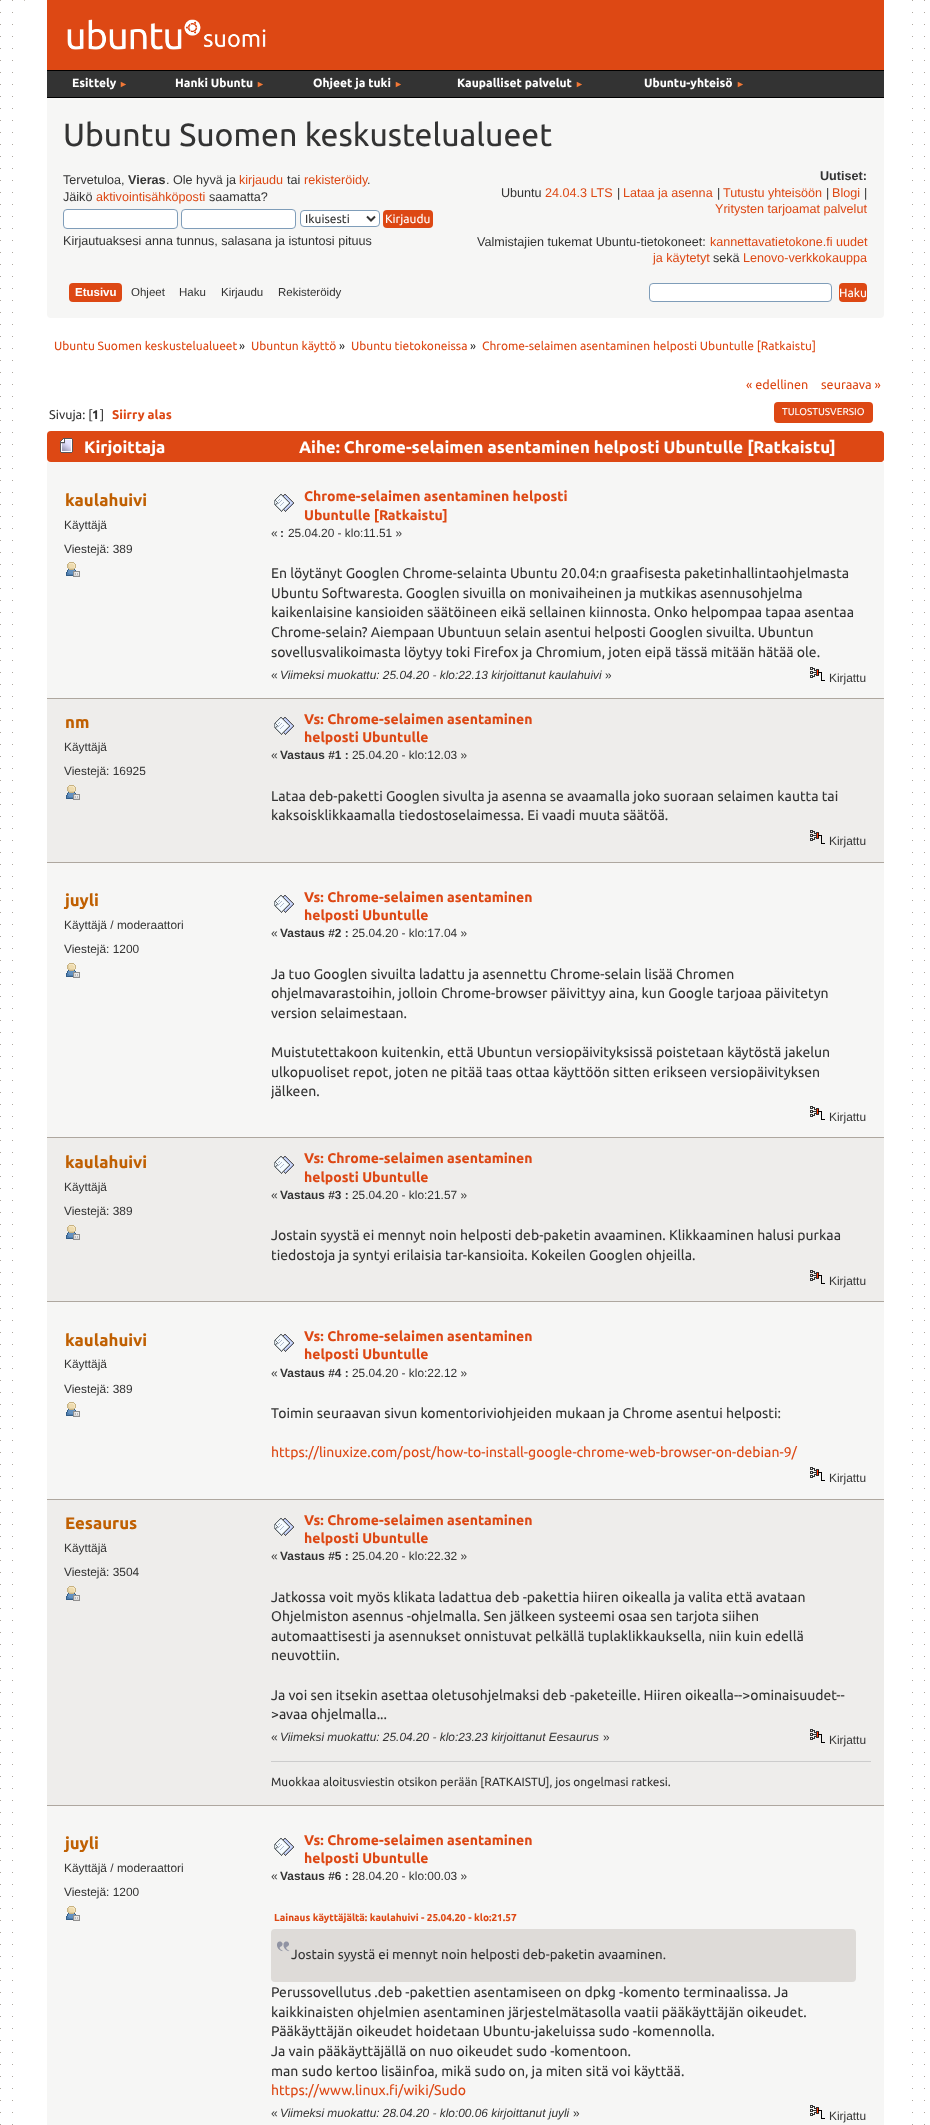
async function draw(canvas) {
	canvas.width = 930;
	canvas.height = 2125;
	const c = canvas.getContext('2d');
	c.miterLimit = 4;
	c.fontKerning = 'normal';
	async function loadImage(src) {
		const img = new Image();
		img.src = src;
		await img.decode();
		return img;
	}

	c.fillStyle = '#fff';
	c.fillRect(0, 0, 930, 2125);
	c.drawImage(await loadImage('img1.png'), 0, 0, 925, 2125);
	c.beginPath();
	c.roundRect(23, 0, 884, 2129, 4);
	c.fill();
	c.fillStyle = '#f6f6f5';
	c.beginPath();
	c.roundRect(47, 0, 837, 318, 4);
	c.fill();
	c.fillStyle = '#dd4814';
	c.fillRect(47, 0, 837, 70);
	c.drawImage(await loadImage('img2.png'), 67, 19, 199, 31);
	for (const [x, y, w, h, color] of [
		[47, 71, 837, 26, '#333'],
		[47, 70, 837, 1, '#000'],
		[47, 97, 837, 1, '#000'],
	]) {
		c.fillStyle = color;
		c.fillRect(x, y, w, h);
	}
	c.font = 'bold 12px Ubuntu';
	c.fillStyle = '#fff';
	c.fillText('Esittely', 72, 87);
	c.font = 'bold 9px Liberation Sans';
	c.fillStyle = '#f27836';
	c.fillText('►', 119, 87);
	c.font = 'bold 12px Ubuntu';
	c.fillStyle = '#fff';
	c.fillText('Hanki Ubuntu', 175, 87);
	c.font = 'bold 9px Liberation Sans';
	c.fillStyle = '#f27836';
	c.fillText('►', 256, 87);
	c.font = 'bold 12px Ubuntu';
	c.fillStyle = '#fff';
	c.fillText('Ohjeet ja tuki', 313, 87);
	c.font = 'bold 9px Liberation Sans';
	c.fillStyle = '#f27836';
	c.fillText('►', 394, 87);
	c.font = 'bold 12px Ubuntu';
	c.fillStyle = '#fff';
	c.fillText('Kaupalliset palvelut', 457, 87);
	c.font = 'bold 9px Liberation Sans';
	c.fillStyle = '#f27836';
	c.fillText('►', 575, 87);
	c.font = 'bold 12px Ubuntu';
	c.fillStyle = '#fff';
	c.fillText('Ubuntu-yhteisö', 644, 87);
	c.font = 'bold 9px Liberation Sans';
	c.fillStyle = '#f27836';
	c.fillText('►', 736, 87);
	c.font = '32px Ubuntu';
	c.fillStyle = '#333';
	c.fillText('Ubuntu Suomen keskustelualueet', 63, 146);
	c.font = '12.6px Liberation Sans';
	c.fillText('Tervetuloa,', 63, 184);
	c.font = 'bold 12.6px Liberation Sans';
	c.fillText('Vieras', 128, 184);
	c.font = '12.6px Liberation Sans';
	c.fillText('. Ole hyvä ja', 166, 184);
	c.fillStyle = '#dd4814';
	c.fillText('kirjaudu', 239, 184);
	c.fillStyle = '#333';
	c.fillText('tai', 287, 184);
	c.fillStyle = '#dd4814';
	c.fillText('rekisteröidy', 304, 184);
	c.fillStyle = '#333';
	c.fillText('.', 367, 184);
	c.fillText('Jäikö', 63, 201);
	c.fillStyle = '#dd4814';
	c.fillText('aktivointisähköposti', 96, 201);
	c.fillStyle = '#333';
	c.fillText('saamatta?', 209, 201);
	c.fillStyle = '#fff';
	c.beginPath();
	c.roundRect(63.5, 209.5, 114, 19, 3.5);
	c.fill();
	c.strokeStyle = '#7f9db9';
	c.stroke();
	c.beginPath();
	c.roundRect(181.5, 209.5, 114, 19, 3.5);
	c.fill();
	c.stroke();
	c.beginPath();
	c.roundRect(300.5, 210.5, 79, 16, 3.5);
	c.fill();
	c.stroke();
	c.beginPath();
	c.moveTo(367, 216.5);
	c.lineTo(371, 220.5);
	c.lineTo(375, 216.5);
	c.strokeStyle = '#333';
	c.lineWidth = 2;
	c.stroke();
	c.font = '12px Ubuntu';
	c.fillStyle = '#333';
	c.fillText('Ikuisesti', 305, 223);
	c.fillStyle = '#dd4814';
	c.beginPath();
	c.roundRect(383, 210, 50, 18, 4);
	c.fill();
	c.fillStyle = '#fff';
	c.fillText('Kirjaudu', 385, 223);
	c.font = '12.6px Liberation Sans';
	c.fillStyle = '#333';
	c.fillText('Kirjautuaksesi anna tunnus, salasana ja istuntosi pituus', 63, 245);
	c.font = 'bold 12.6px Liberation Sans';
	c.fillText('Uutiset:', 820, 180);
	c.font = '12.6px Liberation Sans';
	c.fillText('Ubuntu', 501, 197);
	c.fillStyle = '#dd4814';
	c.fillText('24.04.3 LTS', 545, 197);
	c.fillStyle = '#333';
	c.fillText('|', 617, 197);
	c.fillStyle = '#dd4814';
	c.fillText('Lataa ja asenna', 623, 197);
	c.fillStyle = '#333';
	c.fillText('|', 717, 197);
	c.fillStyle = '#dd4814';
	c.fillText('Tutustu yhteisöön', 723, 197);
	c.fillStyle = '#333';
	c.fillText('|', 826, 197);
	c.fillStyle = '#dd4814';
	c.fillText('Blogi', 832, 197);
	c.fillStyle = '#333';
	c.fillText('|', 864, 197);
	c.fillStyle = '#dd4814';
	c.fillText('Yritysten tarjoamat palvelut', 715, 213);
	c.fillStyle = '#333';
	c.fillText('Valmistajien tukemat Ubuntu-tietokoneet:', 477, 246);
	c.fillStyle = '#dd4814';
	c.fillText('kannettavatietokone.fi uudet', 710, 246);
	c.fillText('ja käytetyt', 653, 262);
	c.fillStyle = '#333';
	c.fillText('sekä', 713, 262);
	c.fillStyle = '#dd4814';
	c.fillText('Lenovo-verkkokauppa', 743, 262);
	c.beginPath();
	c.roundRect(69, 283, 53, 19, 4);
	c.fill();
	c.font = 'bold 11.5px Liberation Sans';
	c.fillStyle = '#fff';
	c.fillText('Etusivu', 75, 296);
	c.font = '11.5px Liberation Sans';
	c.fillStyle = '#333';
	for (const [text, x, y] of [
		['Ohjeet', 131, 296],
		['Haku', 179, 296],
		['Kirjaudu', 221, 296],
		['Rekisteröidy', 278, 296],
	]) {
		c.fillText(text, x, y);
	}
	c.fillStyle = '#fff';
	c.beginPath();
	c.roundRect(649.5, 283.5, 182, 18, 3.5);
	c.fill();
	c.strokeStyle = '#7f9db9';
	c.lineWidth = 1;
	c.stroke();
	c.fillStyle = '#dd4814';
	c.beginPath();
	c.roundRect(839, 283, 28, 19, 4);
	c.fill();
	c.font = '12px Ubuntu';
	c.fillStyle = '#fff';
	c.fillText('Haku', 839, 297);
	c.fillStyle = '#dd4814';
	c.fillText('Ubuntu Suomen keskustelualueet', 54, 350);
	c.fillStyle = '#333';
	c.fillText('»', 239, 350);
	c.fillStyle = '#dd4814';
	c.fillText('Ubuntun käyttö', 251, 350);
	c.fillStyle = '#333';
	c.fillText('»', 339, 350);
	c.fillStyle = '#dd4814';
	c.fillText('Ubuntu tietokoneissa', 351, 350);
	c.fillStyle = '#333';
	c.fillText('»', 470, 350);
	c.fillStyle = '#dd4814';
	c.fillText('Chrome-selaimen asentaminen helposti Ubuntulle [Ratkaistu]', 482, 350);
	c.font = '12.6px Ubuntu';
	c.fillText('« edellinen', 746, 389);
	c.fillText('seuraava »', 821, 389);
	c.fillStyle = '#333';
	c.fillText('Sivuja: [', 49, 419);
	c.font = 'bold 12.6px Ubuntu';
	c.fillText('1', 92, 419);
	c.font = '12.6px Ubuntu';
	c.fillText(']', 100, 419);
	c.font = 'bold 12.6px Ubuntu';
	c.fillStyle = '#dd4814';
	c.fillText('Siirry alas', 112, 419);
	c.beginPath();
	c.roundRect(774, 402, 99, 21, 4);
	c.fill();
	c.font = '10px Ubuntu';
	c.fillStyle = '#fff';
	c.fillText('TULOSTUSVERSIO', 782, 415);
	c.fillStyle = '#dd4814';
	c.beginPath();
	c.roundRect(47, 431, 837, 31, 4);
	c.fill();
	c.fillStyle = '#f6f6f5';
	c.fillRect(47, 462, 837, 236);
	c.save();
	c.beginPath();
	c.roundRect(47, 431, 837, 31, 4);
	c.clip();
	c.fillStyle = '#dd4814';
	c.beginPath();
	c.roundRect(56, 431, 828, 34, 4);
	c.fill();
	c.restore();
	c.drawImage(await loadImage('img3.png'), 60, 438, 13, 15);
	c.font = 'bold 16.8px Ubuntu';
	c.fillStyle = '#fff';
	c.fillText('Kirjoittaja', 84, 453);
	c.fillText('Aihe: Chrome-selaimen asentaminen helposti Ubuntulle [Ratkaistu]', 299, 453);
	c.fillStyle = '#c06002';
	c.fillText('kaulahuivi', 65, 506);
	c.font = '11.9px Liberation Sans';
	c.fillStyle = '#333';
	c.fillText('Käyttäjä', 64, 529);
	c.fillText('Viestejä: 389', 64, 553);
	c.drawImage(await loadImage('img4.png'), 66, 562, 14, 15);
	c.drawImage(await loadImage('img5.png'), 274, 494, 20, 18);
	c.font = 'bold 14px Ubuntu';
	c.fillStyle = '#dd4814';
	c.fillText('Chrome-selaimen asentaminen helposti', 304, 501);
	c.fillText('Ubuntulle [Ratkaistu]', 304, 520);
	c.font = '11.9px Liberation Sans';
	c.fillStyle = '#333';
	c.fillText('«', 271, 537);
	c.font = 'bold 11.9px Liberation Sans';
	c.fillText(':', 280, 537);
	c.font = '11.9px Liberation Sans';
	c.fillText('25.04.20 - klo:11.51 »', 288, 537);
	c.font = '14px Ubuntu';
	for (const [text, x, y] of [
		['En löytänyt Googlen Chrome-selainta Ubuntu 20.04:n graafisesta paketinhallintaohjelmasta', 271, 578],
		['Ubuntu Softwaresta. Googlen sivuilla on monivaiheinen ja mutkikas asennusohjelma', 271, 598],
		['kaikenlaisine kansioiden säätöineen eikä sellainen kiinnosta. Onko helpompaa tapaa asentaa', 271, 617],
		['Chrome-selain? Aiempaan Ubuntuun selain asentui helposti Googlen sivuilta. Ubuntun', 271, 637],
		['sovellusvalikoimasta löytyy toki Firefox ja Chromium, joten eipä tässä mitään hätää ole.', 271, 657],
	]) {
		c.fillText(text, x, y);
	}
	c.font = '11.9px Liberation Sans';
	c.fillText('«', 271, 679);
	c.font = 'italic 11.9px Liberation Sans';
	c.fillText('Viimeksi muokattu: 25.04.20 - klo:22.13 kirjoittanut kaulahuivi', 280, 679);
	c.font = '11.9px Liberation Sans';
	c.fillText('»', 605, 679);
	c.drawImage(await loadImage('img6.png'), 810, 667, 15, 14);
	c.fillText('Kirjattu', 829, 682);
	c.fillStyle = '#aea79f';
	c.fillRect(47, 698, 837, 1);
	c.fillStyle = '#eeedeb';
	c.fillRect(47, 699, 837, 163);
	c.font = 'bold 16.8px Ubuntu';
	c.fillStyle = '#c06002';
	c.fillText('nm', 65, 728);
	c.font = '11.9px Liberation Sans';
	c.fillStyle = '#333';
	c.fillText('Käyttäjä', 64, 751);
	c.fillText('Viestejä: 16925', 64, 775);
	c.drawImage(await loadImage('img7.png'), 66, 785, 14, 15);
	c.drawImage(await loadImage('img8.png'), 274, 717, 20, 18);
	c.font = 'bold 14px Ubuntu';
	c.fillStyle = '#dd4814';
	c.fillText('Vs: Chrome-selaimen asentaminen', 304, 724);
	c.fillText('helposti Ubuntulle', 304, 742);
	c.font = '11.9px Liberation Sans';
	c.fillStyle = '#333';
	c.fillText('«', 271, 759);
	c.font = 'bold 11.9px Liberation Sans';
	c.fillText('Vastaus #1 :', 280, 759);
	c.font = '11.9px Liberation Sans';
	c.fillText('25.04.20 - klo:12.03 »', 352, 759);
	c.font = '14px Ubuntu';
	c.fillText('Lataa deb-paketti Googlen sivulta ja asenna se avaamalla joko suoraan selaimen kautta tai', 271, 801);
	c.fillText('kaksoisklikkaamalla tiedostoselaimessa. Ei vaadi muuta säätöä.', 271, 820);
	c.drawImage(await loadImage('img9.png'), 810, 830, 15, 14);
	c.font = '11.9px Liberation Sans';
	c.fillText('Kirjattu', 829, 845);
	c.fillStyle = '#aea79f';
	c.fillRect(47, 862, 837, 1);
	c.fillStyle = '#f6f6f5';
	c.fillRect(47, 863, 837, 274);
	c.font = 'bold 16.8px Ubuntu';
	c.fillStyle = '#c06002';
	c.fillText('juyli', 65, 906);
	c.font = '11.9px Liberation Sans';
	c.fillStyle = '#333';
	c.fillText('Käyttäjä / moderaattori', 64, 929);
	c.fillText('Viestejä: 1200', 64, 953);
	c.drawImage(await loadImage('img4.png'), 66, 963, 14, 15);
	c.drawImage(await loadImage('img5.png'), 274, 895, 20, 18);
	c.font = 'bold 14px Ubuntu';
	c.fillStyle = '#dd4814';
	c.fillText('Vs: Chrome-selaimen asentaminen', 304, 902);
	c.fillText('helposti Ubuntulle', 304, 920);
	c.font = '11.9px Liberation Sans';
	c.fillStyle = '#333';
	c.fillText('«', 271, 937);
	c.font = 'bold 11.9px Liberation Sans';
	c.fillText('Vastaus #2 :', 280, 937);
	c.font = '11.9px Liberation Sans';
	c.fillText('25.04.20 - klo:17.04 »', 352, 937);
	c.font = '14px Ubuntu';
	for (const [text, x, y] of [
		['Ja tuo Googlen sivuilta ladattu ja asennettu Chrome-selain lisää Chromen', 271, 979],
		['ohjelmavarastoihin, jolloin Chrome-browser päivittyy aina, kun Google tarjoaa päivitetyn', 271, 998],
		['version selaimestaan.', 271, 1018],
		['Muistutettakoon kuitenkin, että Ubuntun versiopäivityksissä poistetaan käytöstä jakelun', 271, 1057],
		['ulkopuoliset repot, joten ne pitää taas ottaa käyttöön sitten erikseen versiopäivityksen', 271, 1077],
	]) {
		c.fillText(text, x, y);
	}
	c.save();
	c.beginPath();
	c.rect(271, 949, 613, 156);
	c.clip();
	c.fillText('jälkeen.', 271, 1096);
	c.restore();
	c.drawImage(await loadImage('img6.png'), 810, 1106, 15, 14);
	c.font = '11.9px Liberation Sans';
	c.fillText('Kirjattu', 829, 1121);
	c.fillStyle = '#aea79f';
	c.fillRect(47, 1137, 837, 1);
	c.fillStyle = '#eeedeb';
	c.fillRect(47, 1138, 837, 163);
	c.font = 'bold 16.8px Ubuntu';
	c.fillStyle = '#c06002';
	c.fillText('kaulahuivi', 65, 1168);
	c.font = '11.9px Liberation Sans';
	c.fillStyle = '#333';
	c.fillText('Käyttäjä', 64, 1191);
	c.fillText('Viestejä: 389', 64, 1215);
	c.drawImage(await loadImage('img7.png'), 66, 1225, 14, 15);
	c.drawImage(await loadImage('img8.png'), 274, 1156, 20, 18);
	c.font = 'bold 14px Ubuntu';
	c.fillStyle = '#dd4814';
	c.fillText('Vs: Chrome-selaimen asentaminen', 304, 1163);
	c.fillText('helposti Ubuntulle', 304, 1182);
	c.font = '11.9px Liberation Sans';
	c.fillStyle = '#333';
	c.fillText('«', 271, 1199);
	c.font = 'bold 11.9px Liberation Sans';
	c.fillText('Vastaus #3 :', 280, 1199);
	c.font = '11.9px Liberation Sans';
	c.fillText('25.04.20 - klo:21.57 »', 352, 1199);
	c.font = '14px Ubuntu';
	c.fillText('Jostain syystä ei mennyt noin helposti deb-paketin avaaminen. Klikkaaminen halusi purkaa', 271, 1240);
	c.fillText('tiedostoja ja syntyi erilaisia tar-kansioita. Kokeilen Googlen ohjeilla.', 271, 1260);
	c.drawImage(await loadImage('img9.png'), 810, 1270, 15, 14);
	c.font = '11.9px Liberation Sans';
	c.fillText('Kirjattu', 829, 1285);
	c.fillStyle = '#aea79f';
	c.fillRect(47, 1301, 837, 1);
	c.fillStyle = '#f6f6f5';
	c.fillRect(47, 1302, 837, 197);
	c.font = 'bold 16.8px Ubuntu';
	c.fillStyle = '#c06002';
	c.fillText('kaulahuivi', 65, 1346);
	c.font = '11.9px Liberation Sans';
	c.fillStyle = '#333';
	c.fillText('Käyttäjä', 64, 1368);
	c.fillText('Viestejä: 389', 64, 1393);
	c.drawImage(await loadImage('img4.png'), 66, 1402, 14, 15);
	c.drawImage(await loadImage('img5.png'), 274, 1334, 20, 18);
	c.font = 'bold 14px Ubuntu';
	c.fillStyle = '#dd4814';
	c.fillText('Vs: Chrome-selaimen asentaminen', 304, 1341);
	c.fillText('helposti Ubuntulle', 304, 1359);
	c.font = '11.9px Liberation Sans';
	c.fillStyle = '#333';
	c.fillText('«', 271, 1377);
	c.font = 'bold 11.9px Liberation Sans';
	c.fillText('Vastaus #4 :', 280, 1377);
	c.font = '11.9px Liberation Sans';
	c.fillText('25.04.20 - klo:22.12 »', 352, 1377);
	c.font = '14px Ubuntu';
	c.fillText('Toimin seuraavan sivun komentoriviohjeiden mukaan ja Chrome asentui helposti:', 271, 1418);
	c.fillStyle = '#dd4814';
	c.fillText('https://linuxize.com/post/how-to-install-google-chrome-web-browser-on-debian-9/', 271, 1457);
	c.drawImage(await loadImage('img6.png'), 810, 1467, 15, 14);
	c.font = '11.9px Liberation Sans';
	c.fillStyle = '#333';
	c.fillText('Kirjattu', 829, 1482);
	c.fillStyle = '#aea79f';
	c.fillRect(47, 1499, 837, 1);
	c.fillStyle = '#eeedeb';
	c.fillRect(47, 1500, 837, 305);
	c.font = 'bold 16.8px Ubuntu';
	c.fillStyle = '#c06002';
	c.fillText('Eesaurus', 65, 1529);
	c.font = '11.9px Liberation Sans';
	c.fillStyle = '#333';
	c.fillText('Käyttäjä', 64, 1552);
	c.fillText('Viestejä: 3504', 64, 1576);
	c.drawImage(await loadImage('img7.png'), 66, 1586, 14, 15);
	c.drawImage(await loadImage('img8.png'), 274, 1518, 20, 18);
	c.font = 'bold 14px Ubuntu';
	c.fillStyle = '#dd4814';
	c.fillText('Vs: Chrome-selaimen asentaminen', 304, 1525);
	c.fillText('helposti Ubuntulle', 304, 1543);
	c.font = '11.9px Liberation Sans';
	c.fillStyle = '#333';
	c.fillText('«', 271, 1560);
	c.font = 'bold 11.9px Liberation Sans';
	c.fillText('Vastaus #5 :', 280, 1560);
	c.font = '11.9px Liberation Sans';
	c.fillText('25.04.20 - klo:22.32 »', 352, 1560);
	c.font = '14px Ubuntu';
	for (const [text, x, y] of [
		['Jatkossa voit myös klikata ladattua deb -pakettia hiiren oikealla ja valita että avataan', 271, 1602],
		['Ohjelmiston asennus -ohjelmalla. Sen jälkeen systeemi osaa sen tarjota siihen', 271, 1621],
		['automaattisesti ja asennukset onnistuvat pelkällä tuplaklikkauksella, niin kuin edellä', 271, 1641],
		['neuvottiin.', 271, 1660],
		['Ja voi sen itsekin asettaa oletusohjelmaksi deb -paketeille. Hiiren oikealla-->ominaisuudet--', 271, 1700],
		['>avaa ohjelmalla...', 271, 1719],
	]) {
		c.fillText(text, x, y);
	}
	c.font = '11.9px Liberation Sans';
	c.fillText('«', 271, 1741);
	c.font = 'italic 11.9px Liberation Sans';
	c.fillText('Viimeksi muokattu: 25.04.20 - klo:23.23 kirjoittanut Eesaurus', 280, 1741);
	c.font = '11.9px Liberation Sans';
	c.fillText('»', 603, 1741);
	c.drawImage(await loadImage('img9.png'), 810, 1729, 15, 14);
	c.fillText('Kirjattu', 829, 1744);
	c.fillStyle = '#ccc';
	c.fillRect(271, 1761, 600, 1);
	c.font = '11.9px Ubuntu';
	c.fillStyle = '#333';
	c.fillText('Muokkaa aloitusviestin otsikon perään [RATKAISTU], jos ongelmasi ratkesi.', 271, 1786);
	c.fillStyle = '#aea79f';
	c.fillRect(47, 1805, 837, 1);
	c.fillStyle = '#f6f6f5';
	c.fillRect(47, 1806, 837, 319);
	c.font = 'bold 16.8px Ubuntu';
	c.fillStyle = '#c06002';
	c.fillText('juyli', 65, 1849);
	c.font = '11.9px Liberation Sans';
	c.fillStyle = '#333';
	c.fillText('Käyttäjä / moderaattori', 64, 1872);
	c.fillText('Viestejä: 1200', 64, 1896);
	c.drawImage(await loadImage('img4.png'), 66, 1906, 14, 15);
	c.drawImage(await loadImage('img5.png'), 274, 1838, 20, 18);
	c.font = 'bold 14px Ubuntu';
	c.fillStyle = '#dd4814';
	c.fillText('Vs: Chrome-selaimen asentaminen', 304, 1845);
	c.fillText('helposti Ubuntulle', 304, 1863);
	c.font = '11.9px Liberation Sans';
	c.fillStyle = '#333';
	c.fillText('«', 271, 1880);
	c.font = 'bold 11.9px Liberation Sans';
	c.fillText('Vastaus #6 :', 280, 1880);
	c.font = '11.9px Liberation Sans';
	c.fillText('28.04.20 - klo:00.03 »', 352, 1880);
	c.font = 'bold 10px Ubuntu';
	c.fillStyle = '#dd4814';
	c.fillText('Lainaus käyttäjältä: kaulahuivi - 25.04.20 - klo:21.57', 274, 1921);
	c.fillStyle = '#dedbd8';
	c.beginPath();
	c.roundRect(271, 1929, 585, 53, 4);
	c.fill();
	c.drawImage(await loadImage('img10.png'), 277, 1941, 13, 11);
	c.font = '13.3px Ubuntu';
	c.fillStyle = '#333';
	c.fillText('Jostain syystä ei mennyt noin helposti deb-paketin avaaminen.', 291, 1959);
	c.font = '14px Ubuntu';
	for (const [text, x, y] of [
		['Perussovellutus .deb -pakettien asentamiseen on dpkg -komento terminaalissa. Ja', 271, 1997],
		['kaikkinaisten ohjelmien asentaminen järjestelmätasolla vaatii pääkäyttäjän oikeudet.', 271, 2017],
		['Pääkäyttäjän oikeudet hoidetaan Ubuntu-jakeluissa sudo -komennolla.', 271, 2036],
		['Ja vain pääkäyttäjällä on nuo oikeudet sudo -komentoon.', 271, 2056],
		['man sudo kertoo lisäinfoa, mikä sudo on, ja miten sitä voi käyttää.', 271, 2076],
	]) {
		c.fillText(text, x, y);
	}
	c.fillStyle = '#dd4814';
	c.fillText('https://www.linux.fi/wiki/Sudo', 271, 2095);
	c.font = '11.9px Liberation Sans';
	c.fillStyle = '#333';
	c.fillText('«', 271, 2117);
	c.font = 'italic 11.9px Liberation Sans';
	c.fillText('Viimeksi muokattu: 28.04.20 - klo:00.06 kirjoittanut juyli', 280, 2117);
	c.font = '11.9px Liberation Sans';
	c.fillText('»', 573, 2117);
	c.drawImage(await loadImage('img6.png'), 810, 2105, 15, 14);
	c.fillText('Kirjattu', 829, 2120);
}

draw(document.querySelector('canvas'));
